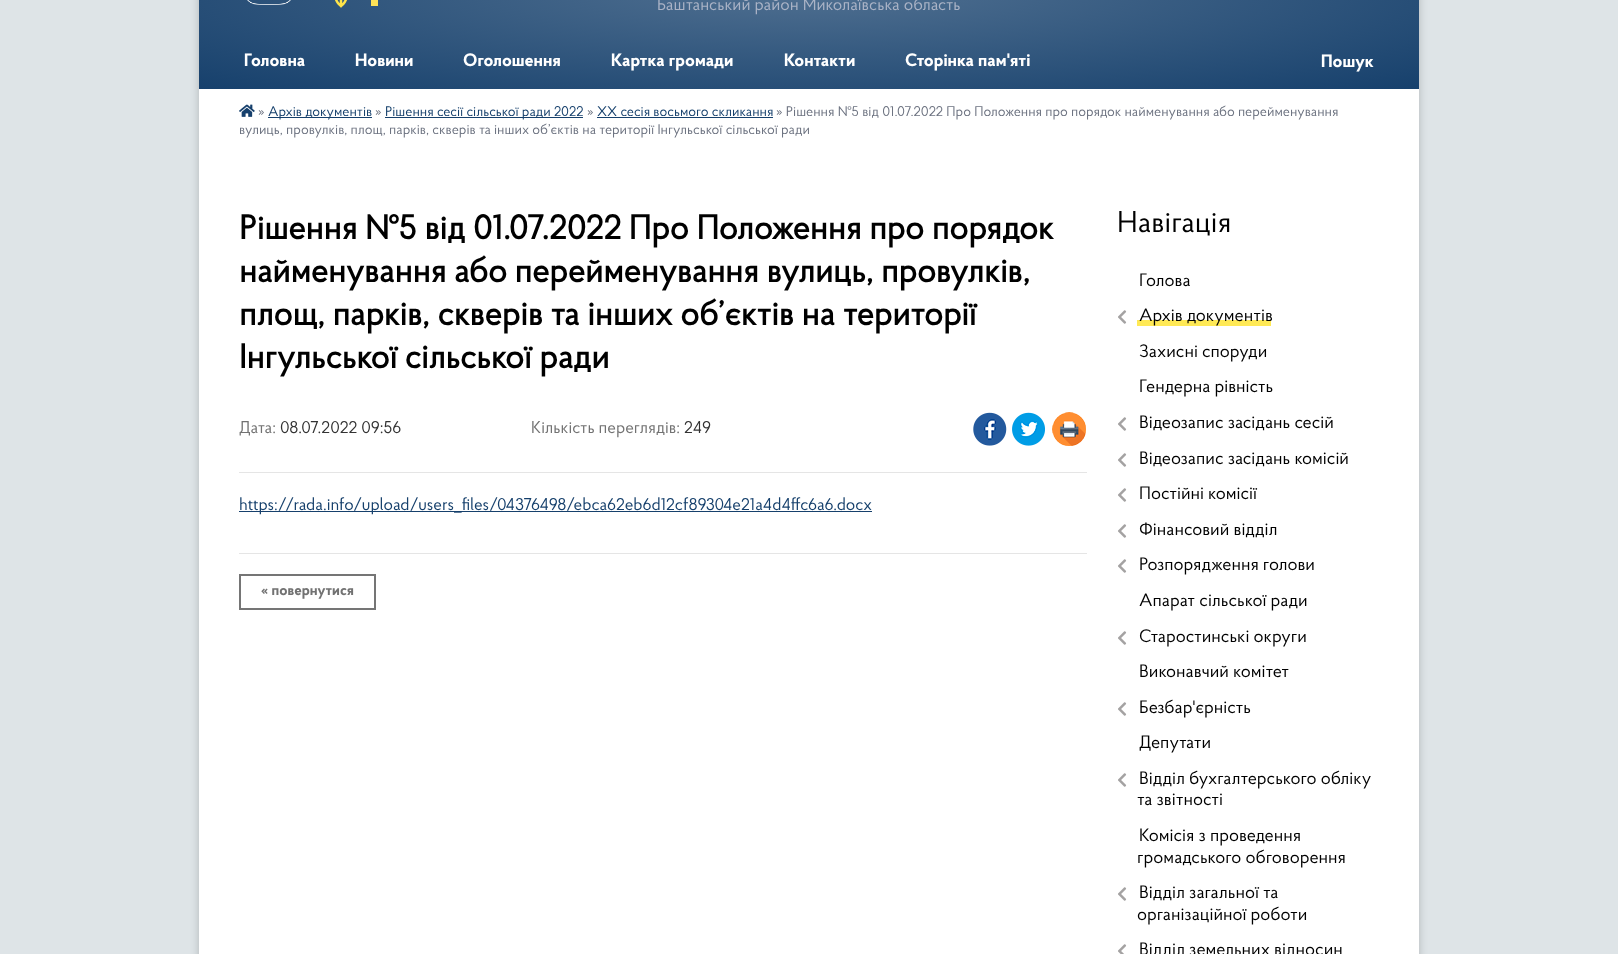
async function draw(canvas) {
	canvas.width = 1618;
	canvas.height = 954;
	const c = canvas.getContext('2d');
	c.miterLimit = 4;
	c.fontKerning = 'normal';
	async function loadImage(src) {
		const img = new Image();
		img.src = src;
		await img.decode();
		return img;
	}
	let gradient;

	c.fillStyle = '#dee4e7';
	c.fillRect(0, 0, 1618, 954);
	c.fillStyle = '#00000033';
	c.filter = 'blur(4px)';
	c.beginPath();
	c.rect(199, -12, 1220, 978);
	c.fill();
	c.filter = 'none';
	c.fillStyle = '#fff';
	c.fillRect(199, 89, 1220, 865);
	gradient = c.createRadialGradient(809, -61.21, 0, 809, -61.21, 863);
	gradient.addColorStop(0, '#507091');
	gradient.addColorStop(1, '#16406c');
	c.fillStyle = gradient;
	c.beginPath();
	c.rect(199, 0, 1220, 89);
	c.save();
	c.clip();
	c.scale(1, 141 / 863);
	c.fillRect(0, 0, 1618, 5840);
	c.restore();
	c.drawImage(await loadImage('img1.png'), 247, 0, 44, 5);
	c.drawImage(await loadImage('img2.png'), 335, 0, 12, 8);
	c.fillStyle = '#ffe358';
	c.fillRect(371, 0, 7, 6);
	c.font = '17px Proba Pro';
	c.fillStyle = '#aab3c6';
	c.fillText('Баштанський район Миколаївська область', 657, 10);
	c.font = 'bold 18px Proba Pro';
	c.fillStyle = '#fff';
	for (const [text, x, y] of [
		['Головна', 244, 66],
		['Новини', 355, 66],
		['Оголошення', 463, 66],
		['Картка громади', 611, 66],
		['Контакти', 784, 66],
		['Сторінка пам\'яті', 905, 66],
		['Пошук', 1321, 67],
	]) {
		c.fillText(text, x, y);
	}
	c.drawImage(await loadImage('img3.png'), 239, 104, 16, 13);
	c.font = '14px Proba Pro';
	c.fillStyle = '#6d7381';
	c.fillText('»', 258, 116);
	c.fillStyle = '#16406c';
	c.fillRect(268, 117, 104, 1);
	c.fillText('Архів документів', 268, 116);
	c.fillStyle = '#6d7381';
	c.fillText('»', 375, 116);
	c.fillStyle = '#16406c';
	c.fillRect(385, 117, 198, 1);
	c.fillText('Рішення сесії сільської ради 2022', 385, 116);
	c.fillStyle = '#6d7381';
	c.fillText('»', 587, 116);
	c.fillStyle = '#16406c';
	c.fillText('ХХ сесія восьмого скликання', 597, 116);
	c.fillRect(597, 117, 176, 1);
	c.fillStyle = '#6d7381';
	c.fillText('» Рішення №5 від 01.07.2022 Про Положення про порядок найменування або перейменування', 776, 116);
	c.fillText('вулиць, провулків, площ, парків, скверів та інших об’єктів на території Інгульської сільської ради', 239, 134);
	c.font = 'bold 34px "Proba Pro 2"';
	c.fillStyle = '#000';
	for (const [text, x, y] of [
		['Рішення №5 від 01.07.2022 Про Положення про порядок', 239, 239],
		['найменування або перейменування вулиць, провулків,', 239, 282],
		['площ, парків, скверів та інших об’єктів на території', 239, 325],
		['Інгульської сільської ради', 239, 368],
	]) {
		c.fillText(text, x, y);
	}
	c.font = '17px Proba Pro';
	c.fillStyle = '#727272';
	c.fillText('Дата:', 239, 433);
	c.fillStyle = '#333';
	c.fillText('08.07.2022 09:56', 280, 433);
	c.fillStyle = '#727272';
	c.fillText('Кількість переглядів:', 531, 433);
	c.fillStyle = '#333';
	c.fillText('249', 684, 433);
	c.drawImage(await loadImage('img4.png'), 973, 412, 34, 34);
	c.drawImage(await loadImage('img5.png'), 1012, 412, 33, 34);
	c.drawImage(await loadImage('img6.png'), 1052, 412, 34, 34);
	c.fillStyle = '#e5e5e5';
	c.fillRect(239, 472, 848, 1);
	c.fillStyle = '#16406c';
	c.fillRect(239, 511, 633, 1);
	c.fillText('https://rada.info/upload/users_files/04376498/ebca62eb6d12cf89304e21a4d4ffc6a6.docx', 239, 510);
	c.fillStyle = '#e5e5e5';
	c.fillRect(239, 553, 848, 1);
	c.strokeStyle = '#757575';
	c.lineWidth = 2;
	c.strokeRect(240, 575, 135, 34);
	c.font = 'bold 15px Proba Pro';
	c.fillStyle = '#727272';
	c.fillText('« повернутися', 261, 595);
	c.font = '30px Proba Pro';
	c.fillStyle = '#000';
	c.fillText('Навігація', 1117, 232);
	c.font = '18px Proba Pro';
	c.fillText('Голова', 1139, 286);
	c.drawImage(await loadImage('img7.png'), 1118, 310, 9, 14);
	c.fillStyle = '#ffe955';
	c.fillRect(1137, 320, 134, 6);
	c.fillStyle = '#000';
	for (const [text, x, y] of [
		['Архів документів', 1139, 321],
		['Захисні споруди', 1139, 357],
		['Гендерна рівність', 1139, 392],
	]) {
		c.fillText(text, x, y);
	}
	c.drawImage(await loadImage('img7.png'), 1118, 417, 9, 14);
	c.fillText('Відеозапис засідань сесій', 1139, 428);
	c.drawImage(await loadImage('img7.png'), 1118, 453, 9, 14);
	c.fillText('Відеозапис засідань комісій', 1139, 464);
	c.drawImage(await loadImage('img7.png'), 1118, 488, 9, 14);
	c.fillText('Постійні комісії', 1139, 499);
	c.drawImage(await loadImage('img7.png'), 1118, 524, 9, 14);
	c.fillText('Фінансовий відділ', 1139, 535);
	c.drawImage(await loadImage('img7.png'), 1118, 559, 9, 14);
	c.fillText('Розпорядження голови', 1139, 570);
	c.fillText('Апарат сільської ради', 1139, 606);
	c.drawImage(await loadImage('img7.png'), 1118, 631, 9, 14);
	c.fillText('Старостинські округи', 1139, 642);
	c.fillText('Виконавчий комітет', 1139, 677);
	c.drawImage(await loadImage('img7.png'), 1118, 702, 9, 14);
	c.fillText('Безбар\'єрність', 1139, 713);
	c.fillText('Депутати', 1139, 748);
	c.drawImage(await loadImage('img7.png'), 1118, 773, 9, 14);
	for (const [text, x, y] of [
		['Відділ бухгалтерського обліку', 1139, 784],
		['та звітності', 1137, 805],
		['Комісія з проведення', 1139, 841],
		['громадського обговорення', 1137, 863],
	]) {
		c.fillText(text, x, y);
	}
	c.drawImage(await loadImage('img7.png'), 1118, 887, 9, 14);
	c.fillText('Відділ загальної та', 1139, 898);
	c.fillText('організаційної роботи', 1137, 920);
	c.drawImage(await loadImage('img8.png'), 1118, 944, 9, 10);
	c.fillText('Відділ земельних відносин', 1139, 955);
}

draw(document.querySelector('canvas'));
